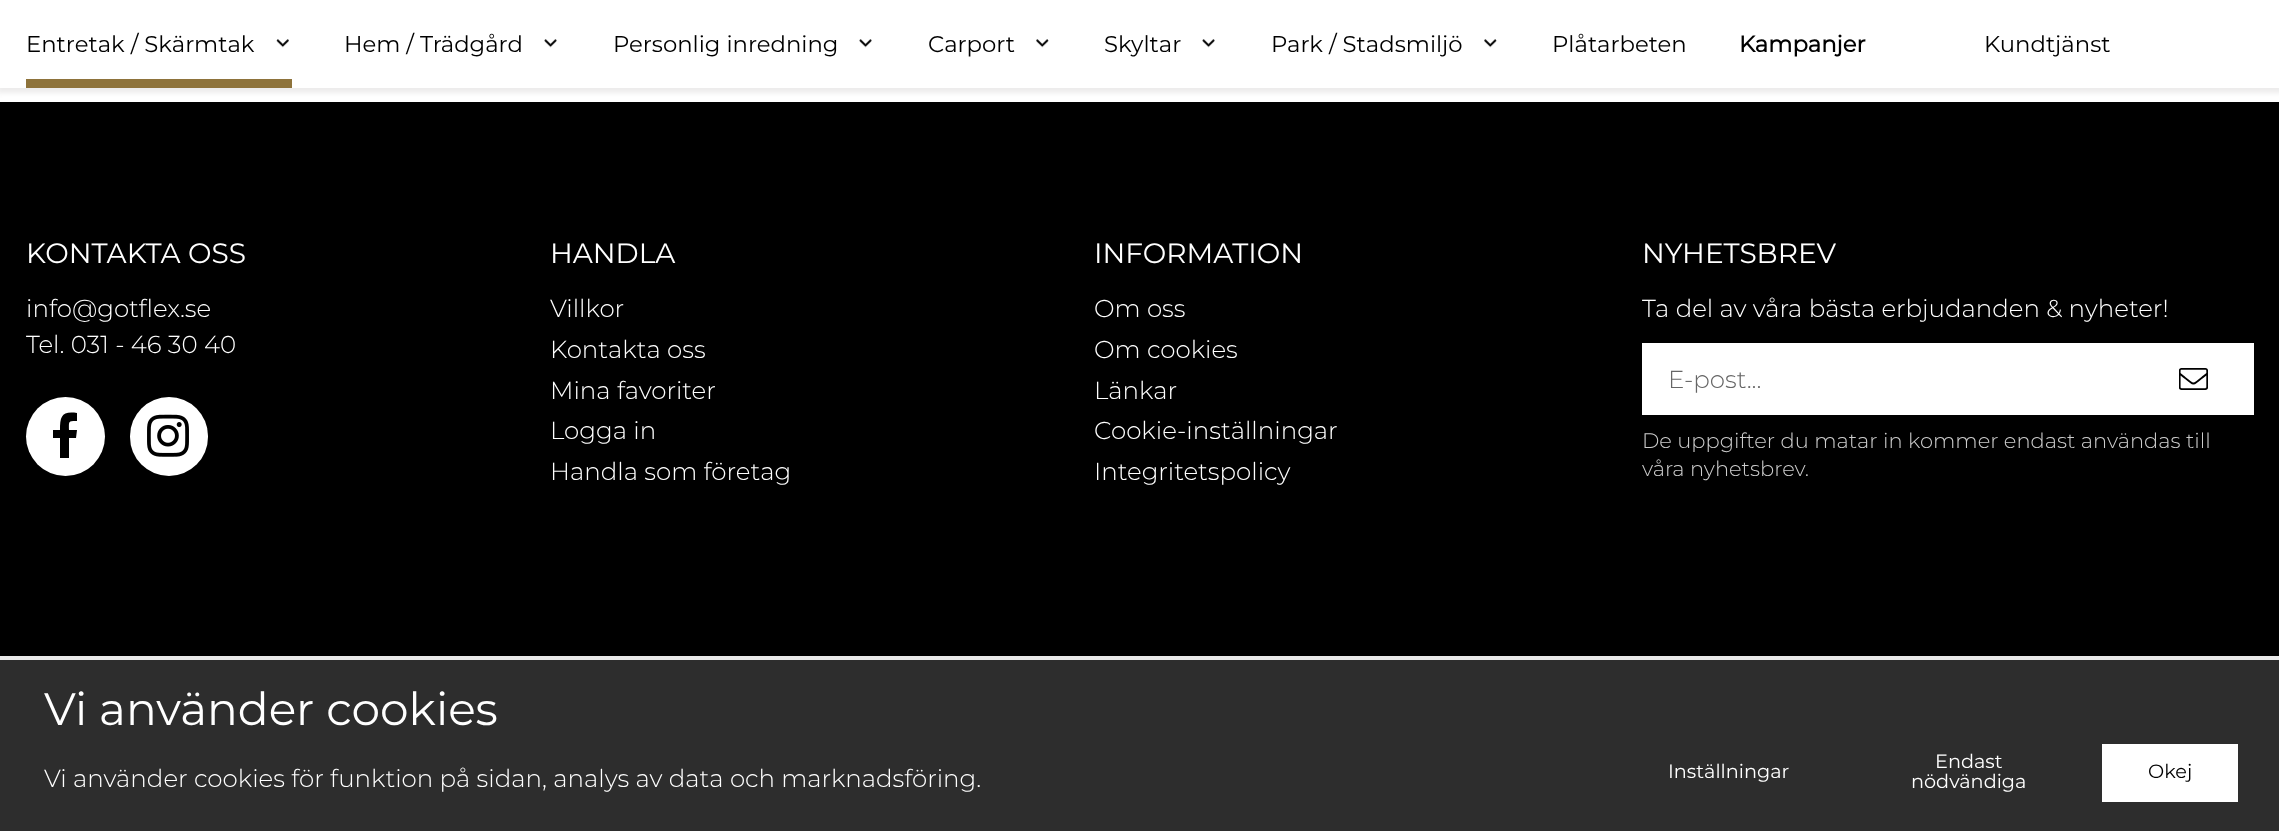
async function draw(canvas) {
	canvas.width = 2279;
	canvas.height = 831;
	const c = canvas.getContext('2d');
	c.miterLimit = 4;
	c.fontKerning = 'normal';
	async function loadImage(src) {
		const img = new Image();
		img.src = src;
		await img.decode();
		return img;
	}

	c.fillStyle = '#fff';
	c.fillRect(0, 0, 2279, 831);
	c.fillStyle = '#edecec';
	c.filter = 'blur(2.5px)';
	c.beginPath();
	c.rect(-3, -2, 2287, 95);
	c.fill();
	c.filter = 'none';
	c.fillStyle = '#fff';
	c.fillRect(0, 0, 2279, 88);
	c.fillStyle = '#8e733b';
	c.fillRect(26, 79, 266, 9);
	c.font = '22.75px Montserrat';
	c.fillStyle = '#000';
	c.fillText('Entretak / Skärmtak', 26, 52);
	c.drawImage(await loadImage('img1.png'), 276, 39, 13, 9);
	c.fillText('Hem / Trädgård', 344, 52);
	c.drawImage(await loadImage('img2.png'), 544, 39, 13, 9);
	c.fillText('Personlig inredning', 613, 52);
	c.drawImage(await loadImage('img3.png'), 859, 39, 13, 9);
	c.fillText('Carport', 928, 52);
	c.drawImage(await loadImage('img4.png'), 1036, 39, 13, 9);
	c.fillText('Skyltar', 1104, 52);
	c.drawImage(await loadImage('img2.png'), 1202, 39, 13, 9);
	c.fillText('Park / Stadsmiljö', 1271, 52);
	c.drawImage(await loadImage('img4.png'), 1484, 39, 13, 9);
	c.fillText('Plåtarbeten', 1552, 52);
	c.font = 'bold 22.75px Montserrat';
	c.fillText('Kampanjer', 1739, 52);
	c.font = '22.75px Montserrat';
	c.fillText('Kundtjänst', 1984, 52);
	c.fillRect(0, 102, 2279, 554);
	c.font = '28px Montserrat';
	c.fillStyle = '#fff';
	c.fillText('KONTAKTA OSS', 26, 263);
	c.font = '300 24.5px Montserrat';
	c.fillText('info@gotflex.se', 26, 317);
	c.fillText('Tel. 031 - 46 30 40', 26, 353);
	c.beginPath();
	c.arc(65.5, 436.5, 39.5, 0, 2 * Math.PI);
	c.fill();
	c.fillStyle = '#000';
	c.beginPath();
	c.moveTo(77, 413);
	c.lineTo(77, 421);
	c.bezierCurveTo(68, 421, 69, 421, 69, 430);
	c.lineTo(77, 430);
	c.lineTo(76, 438);
	c.lineTo(69, 438);
	c.lineTo(69, 458);
	c.lineTo(60, 458);
	c.lineTo(60, 438);
	c.lineTo(53, 438);
	c.lineTo(53, 430);
	c.lineTo(60, 430);
	c.bezierCurveTo(60, 416, 62, 411, 77, 413);
	c.closePath();
	c.fill();
	c.fillStyle = '#fff';
	c.beginPath();
	c.roundRect(130, 397, 78, 79, 39);
	c.fill();
	c.drawImage(await loadImage('img5.png'), 147, 414, 42, 43);
	c.font = '28px Montserrat';
	c.fillText('HANDLA', 550, 263);
	c.font = '300 24.5px Montserrat';
	for (const [text, x, y] of [
		['Villkor', 550, 317],
		['Kontakta oss', 550, 358],
		['Mina favoriter', 550, 399],
		['Logga in', 550, 439],
		['Handla som företag', 550, 480],
	]) {
		c.fillText(text, x, y);
	}
	c.font = '28px Montserrat';
	c.fillText('INFORMATION', 1094, 263);
	c.font = '300 24.5px Montserrat';
	for (const [text, x, y] of [
		['Om oss', 1094, 317],
		['Om cookies', 1094, 358],
		['Länkar', 1094, 399],
		['Cookie-inställningar', 1094, 439],
		['Integritetspolicy', 1094, 480],
	]) {
		c.fillText(text, x, y);
	}
	c.font = '28px Montserrat';
	c.fillText('NYHETSBREV', 1642, 263);
	c.font = '300 24.5px Montserrat';
	c.fillText('Ta del av våra bästa erbjudanden & nyheter!', 1642, 317);
	c.fillRect(1642, 343, 612, 72);
	c.fillStyle = '#666';
	c.fillText('E-post...', 1668, 388);
	c.drawImage(await loadImage('img6.png'), 2179, 368, 29, 22);
	c.font = '300 21px Montserrat';
	c.fillStyle = '#ccc';
	c.fillText('De uppgifter du matar in kommer endast användas till', 1642, 448);
	c.fillText('våra nyhetsbrev.', 1642, 476);
	c.fillStyle = '#2d2d2d';
	c.fillRect(0, 660, 2279, 171);
	c.fillStyle = '#e9e9e9';
	c.fillRect(0, 656, 2279, 4);
	c.font = '45.5px Montserrat';
	c.fillStyle = '#fff';
	c.fillText('Vi använder cookies', 44, 725);
	c.font = '300 24.5px Montserrat';
	c.fillText('Vi använder cookies för funktion på sidan, analys av data och marknadsföring.', 44, 787);
	c.font = '19.25px Montserrat';
	for (const [text, x, y] of [
		['Inställningar', 1668, 778],
		['Endast', 1935, 768],
		['nödvändiga', 1911, 788],
	]) {
		c.fillText(text, x, y);
	}
	c.fillRect(2102, 744, 136, 58);
	c.fillStyle = '#000';
	c.fillText('Okej', 2148, 778);
}

draw(document.querySelector('canvas'));
